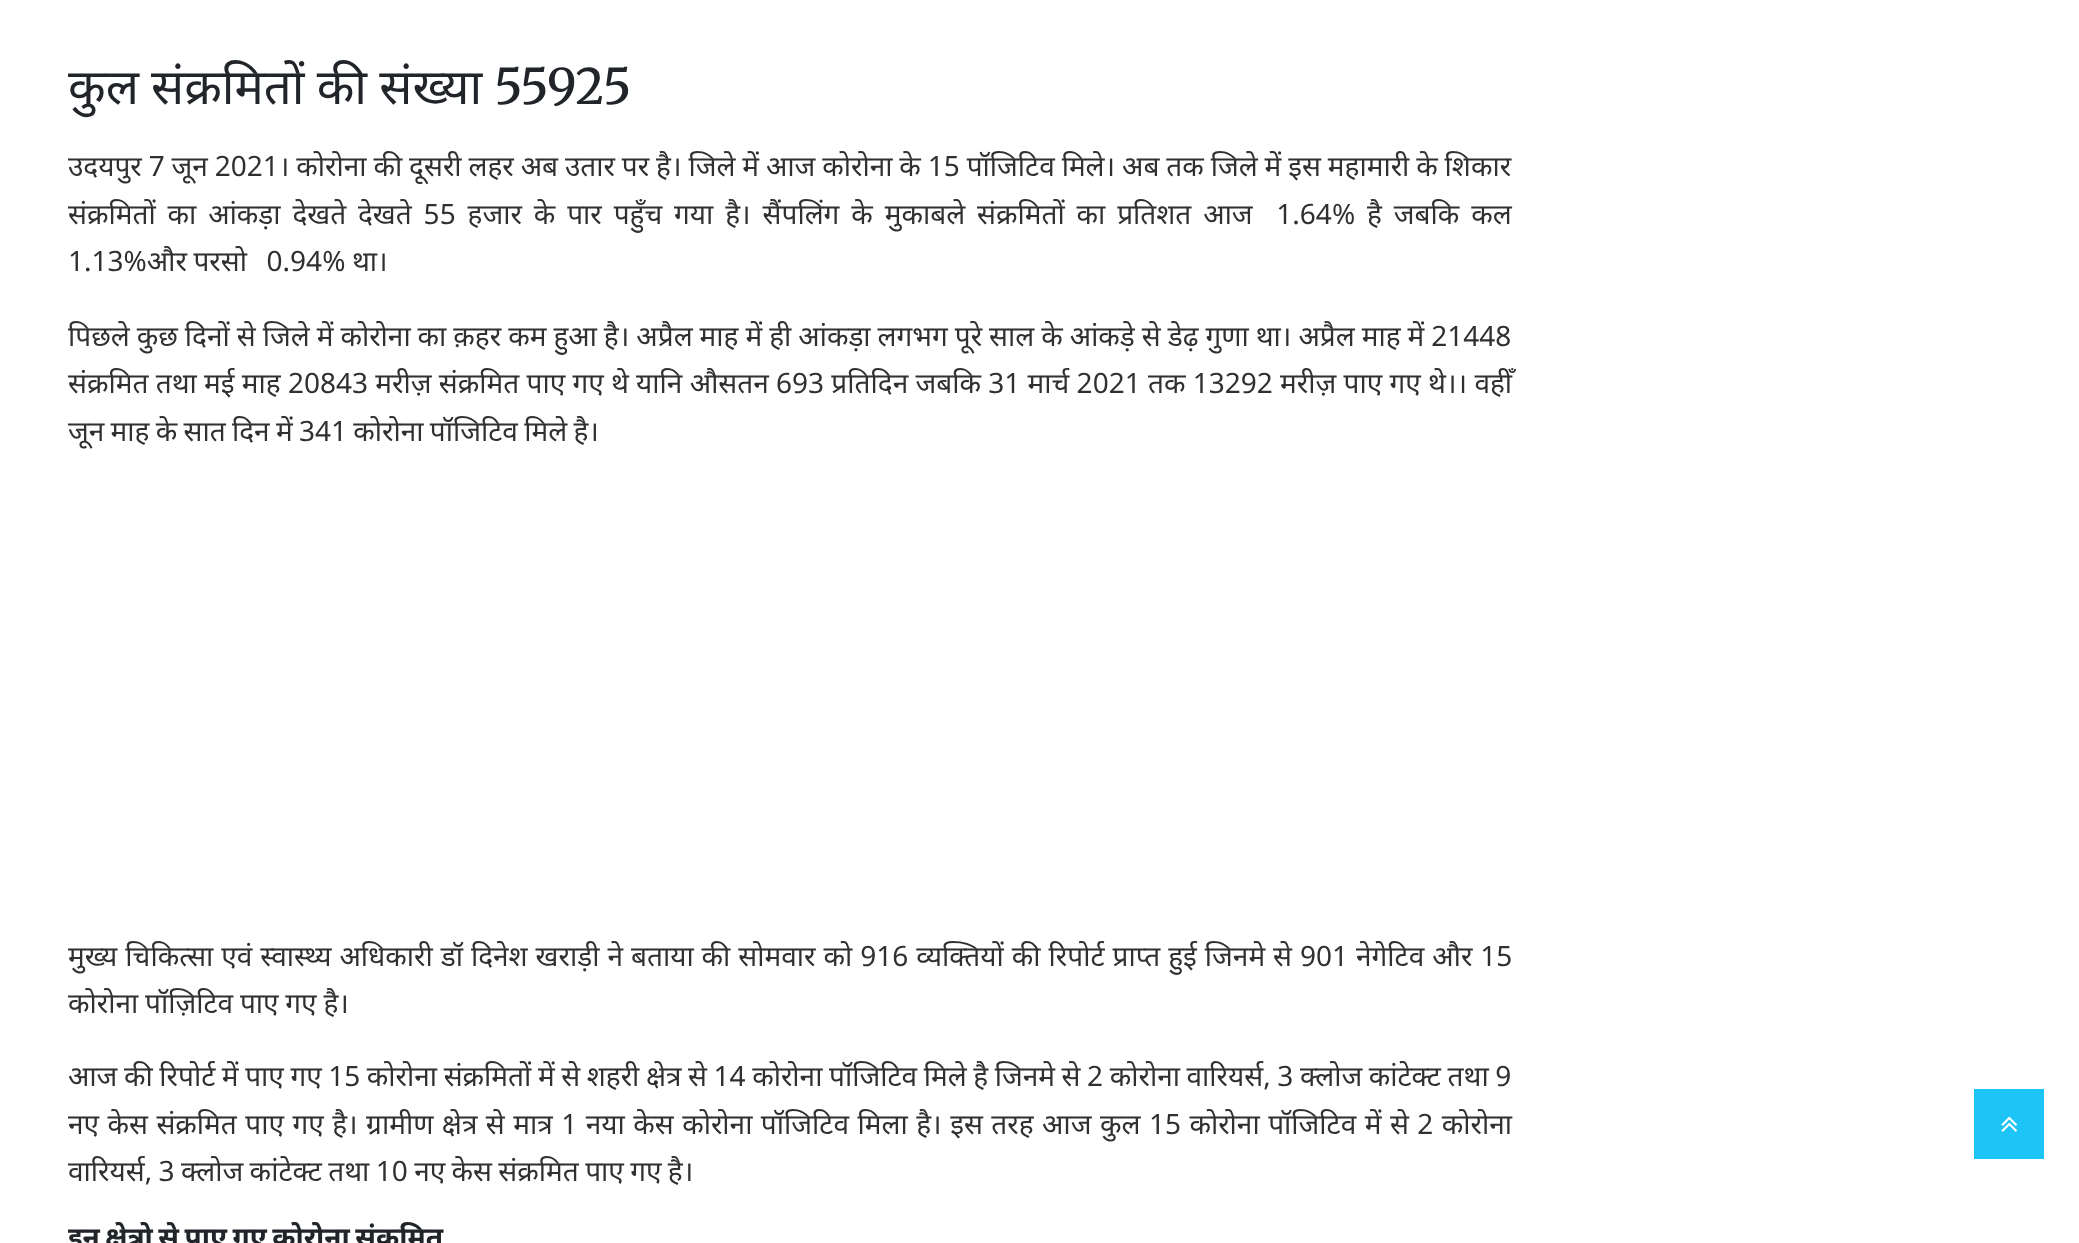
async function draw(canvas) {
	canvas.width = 2079;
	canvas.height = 1243;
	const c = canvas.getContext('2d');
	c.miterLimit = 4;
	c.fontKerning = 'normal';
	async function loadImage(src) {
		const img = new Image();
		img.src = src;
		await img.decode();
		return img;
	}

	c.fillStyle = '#fff';
	c.fillRect(0, 0, 2079, 1243);
	c.wordSpacing = '-0.5px';
	c.font = '49px Noto Sans';
	c.fillStyle = '#212529';
	c.fillText('कुल संक्रमितों की संख्या', 68, 104);
	c.wordSpacing = '0px';
	c.font = '500 49px Merriweather';
	c.fillText('55925', 494, 104);
	c.wordSpacing = '-0.4px';
	c.font = '28px Noto Sans';
	c.fillStyle = '#303030';
	c.fillText('उदयपुर 7 जून 2021। कोरोना की दूसरी लहर अब उतार पर है। जिले में आज कोरोना के 15 पॉजिटिव मिले। अब तक जिले में इस महामारी के शिकार', 68, 176);
	c.wordSpacing = '4.6px';
	c.fillText('संक्रमितों का आंकड़ा देखते देखते 55 हजार के पार पहुँच गया है। सैंपलिंग के मुकाबले संक्रमितों का प्रतिशत आज  1.64% है जबकि कल', 68, 224);
	c.wordSpacing = '-0.75px';
	c.fillText('1.13%और परसो   0.94% था।', 68, 271);
	c.wordSpacing = '-0.3px';
	c.fillText('पिछले कुछ दिनों से जिले में कोरोना का क़हर कम हुआ है। अप्रैल माह में ही आंकड़ा लगभग पूरे साल के आंकड़े से डेढ़ गुणा था। अप्रैल माह में 21448', 68, 346);
	c.wordSpacing = '0px';
	c.fillText('संक्रमित तथा मई माह 20843 मरीज़ संक्रमित पाए गए थे यानि औसतन 693 प्रतिदिन जबकि 31 मार्च 2021 तक 13292 मरीज़ पाए गए थे।। वहीँ', 68, 393);
	c.wordSpacing = '-1px';
	c.fillText('जून माह के सात दिन में 341 कोरोना पॉजिटिव मिले है।', 68, 441);
	c.wordSpacing = '0.7px';
	c.fillText('मुख्य चिकित्सा एवं स्वास्थ्य अधिकारी डॉ दिनेश खराड़ी ने बताया की सोमवार को 916 व्यक्तियों की रिपोर्ट प्राप्त हुई जिनमे से 901 नेगेटिव और 15', 68, 966);
	c.wordSpacing = '-0.5px';
	c.fillText('कोरोना पॉज़िटिव पाए गए है।', 68, 1013);
	c.wordSpacing = '-0.7px';
	c.fillText('आज की रिपोर्ट में पाए गए 15 कोरोना संक्रमितों में से शहरी क्षेत्र से 14 कोरोना पॉजिटिव मिले है जिनमे से 2 कोरोना वारियर्स, 3 क्लोज कांटेक्ट तथा 9', 68, 1086);
	c.wordSpacing = '1.2px';
	c.fillText('नए केस संक्रमित पाए गए है। ग्रामीण क्षेत्र से मात्र 1 नया केस कोरोना पॉजिटिव मिला है। इस तरह आज कुल 15 कोरोना पॉजिटिव में से 2 कोरोना', 68, 1134);
	c.wordSpacing = '-0.9px';
	c.fillText('वारियर्स, 3 क्लोज कांटेक्ट तथा 10 नए केस संक्रमित पाए गए है।', 68, 1181);
	c.wordSpacing = '-1.75px';
	c.font = 'bold 28px Noto Sans';
	c.fillStyle = '#212529';
	c.fillText('इन क्षेत्रो से पाए गए कोरोना संक्रमित', 68, 1247);
	c.fillStyle = '#1dc4f6';
	c.fillRect(1974, 1089, 70, 70);
	c.drawImage(await loadImage('img1.png'), 2001, 1116, 16, 16);
}

draw(document.querySelector('canvas'));
